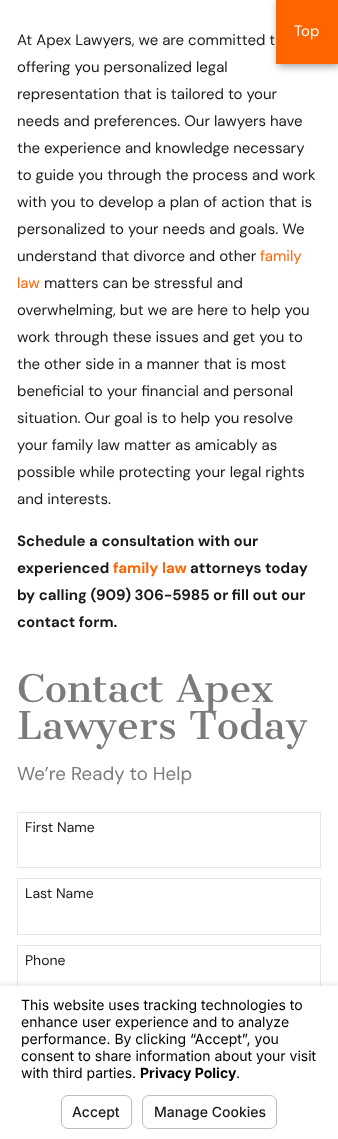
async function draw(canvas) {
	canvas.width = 338;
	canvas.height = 1139;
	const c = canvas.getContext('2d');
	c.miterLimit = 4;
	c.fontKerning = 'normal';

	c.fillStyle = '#fff';
	c.fillRect(0, 0, 338, 1139);
	c.fillStyle = '#00000066';
	c.filter = 'blur(4px)';
	c.beginPath();
	c.rect(278, 2, 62, 64);
	c.fill();
	c.filter = 'none';
	c.fillStyle = '#ff6400';
	c.fillRect(276, 0, 62, 64);
	c.font = '15px DM Sans';
	c.fillStyle = '#fff';
	c.fillText('Top', 294, 36);
	c.fillStyle = '#1a1a1a';
	for (const [text, x, y] of [
		['At Apex Lawyers, we are committed t', 17, 45],
		['offering you personalized legal', 17, 72],
		['representation that is tailored to your', 17, 99],
		['needs and preferences. Our lawyers have', 17, 126],
		['the experience and knowledge necessary', 17, 153],
		['to guide you through the process and work', 17, 180],
		['with you to develop a plan of action that is', 17, 207],
		['personalized to your needs and goals. We', 17, 234],
		['understand that divorce and other', 17, 261],
	]) {
		c.fillText(text, x, y);
	}
	c.fillStyle = '#ff6400';
	c.fillText('family', 260, 261);
	c.fillText('law', 17, 288);
	c.fillStyle = '#1a1a1a';
	for (const [text, x, y] of [
		['matters can be stressful and', 44, 288],
		['overwhelming, but we are here to help you', 17, 315],
		['work through these issues and get you to', 17, 342],
		['the other side in a manner that is most', 17, 369],
		['beneficial to your financial and personal', 17, 396],
		['situation. Our goal is to help you resolve', 17, 423],
		['your family law matter as amicably as', 17, 450],
		['possible while protecting your legal rights', 17, 477],
		['and interests.', 17, 504],
	]) {
		c.fillText(text, x, y);
	}
	c.font = 'bold 15px DM Sans';
	c.fillText('Schedule a consultation with our', 17, 546);
	c.fillText('experienced', 17, 573);
	c.fillStyle = '#ff6400';
	c.fillText('family law', 113, 573);
	c.fillStyle = '#1a1a1a';
	for (const [text, x, y] of [
		['attorneys today', 190, 573],
		['by calling (909) 306-5985 or fill out our', 17, 600],
		['contact form.', 17, 627],
	]) {
		c.fillText(text, x, y);
	}
	c.font = '37.5px Cantata One';
	c.fillStyle = '#7b7b7b';
	c.fillText('Contact Apex', 17, 702);
	c.fillText('Lawyers Today', 17, 739);
	c.font = '18.75px DM Sans';
	c.fillText('We’re Ready to Help', 17, 780);
	c.strokeStyle = '#e6e6e6';
	c.strokeRect(17.5, 812.5, 303, 55);
	c.font = '14px DM Sans';
	c.fillStyle = '#1a1a1a';
	c.fillText('First Name', 25, 832);
	c.strokeRect(17.5, 878.5, 303, 56);
	c.fillText('Last Name', 25, 898);
	c.strokeRect(17.5, 945.5, 303, 55);
	c.fillText('Phone', 25, 965);
	c.fillStyle = '#0000000d';
	c.filter = 'blur(1.5px)';
	c.beginPath();
	c.rect(0, 982, 338, 153);
	c.fill();
	c.filter = 'none';
	c.fillStyle = '#fff';
	c.fillRect(0, 986, 338, 150);
	c.font = '14px Inter';
	c.fillStyle = '#000';
	for (const [text, x, y] of [
		['This website uses tracking technologies to', 21, 1010],
		['enhance user experience and to analyze', 21, 1027],
		['performance. By clicking “Accept”, you', 21, 1044],
		['consent to share information about your visit', 21, 1061],
		['with third parties.', 21, 1078],
	]) {
		c.fillText(text, x, y);
	}
	c.font = 'bold 14px Inter';
	c.fillText('Privacy Policy', 140, 1078);
	c.font = '14px Inter';
	c.fillText('.', 236, 1078);
	c.beginPath();
	c.roundRect(61.5, 1095.5, 70, 33, 6.5);
	c.strokeStyle = '#bcbec7';
	c.stroke();
	c.font = '500 14px Inter';
	c.fillStyle = '#1a1a1a';
	c.fillText('Accept', 72, 1117);
	c.beginPath();
	c.roundRect(142.5, 1095.5, 134, 33, 6.5);
	c.stroke();
	c.fillText('Manage Cookies', 154, 1117);
}

draw(document.querySelector('canvas'));
